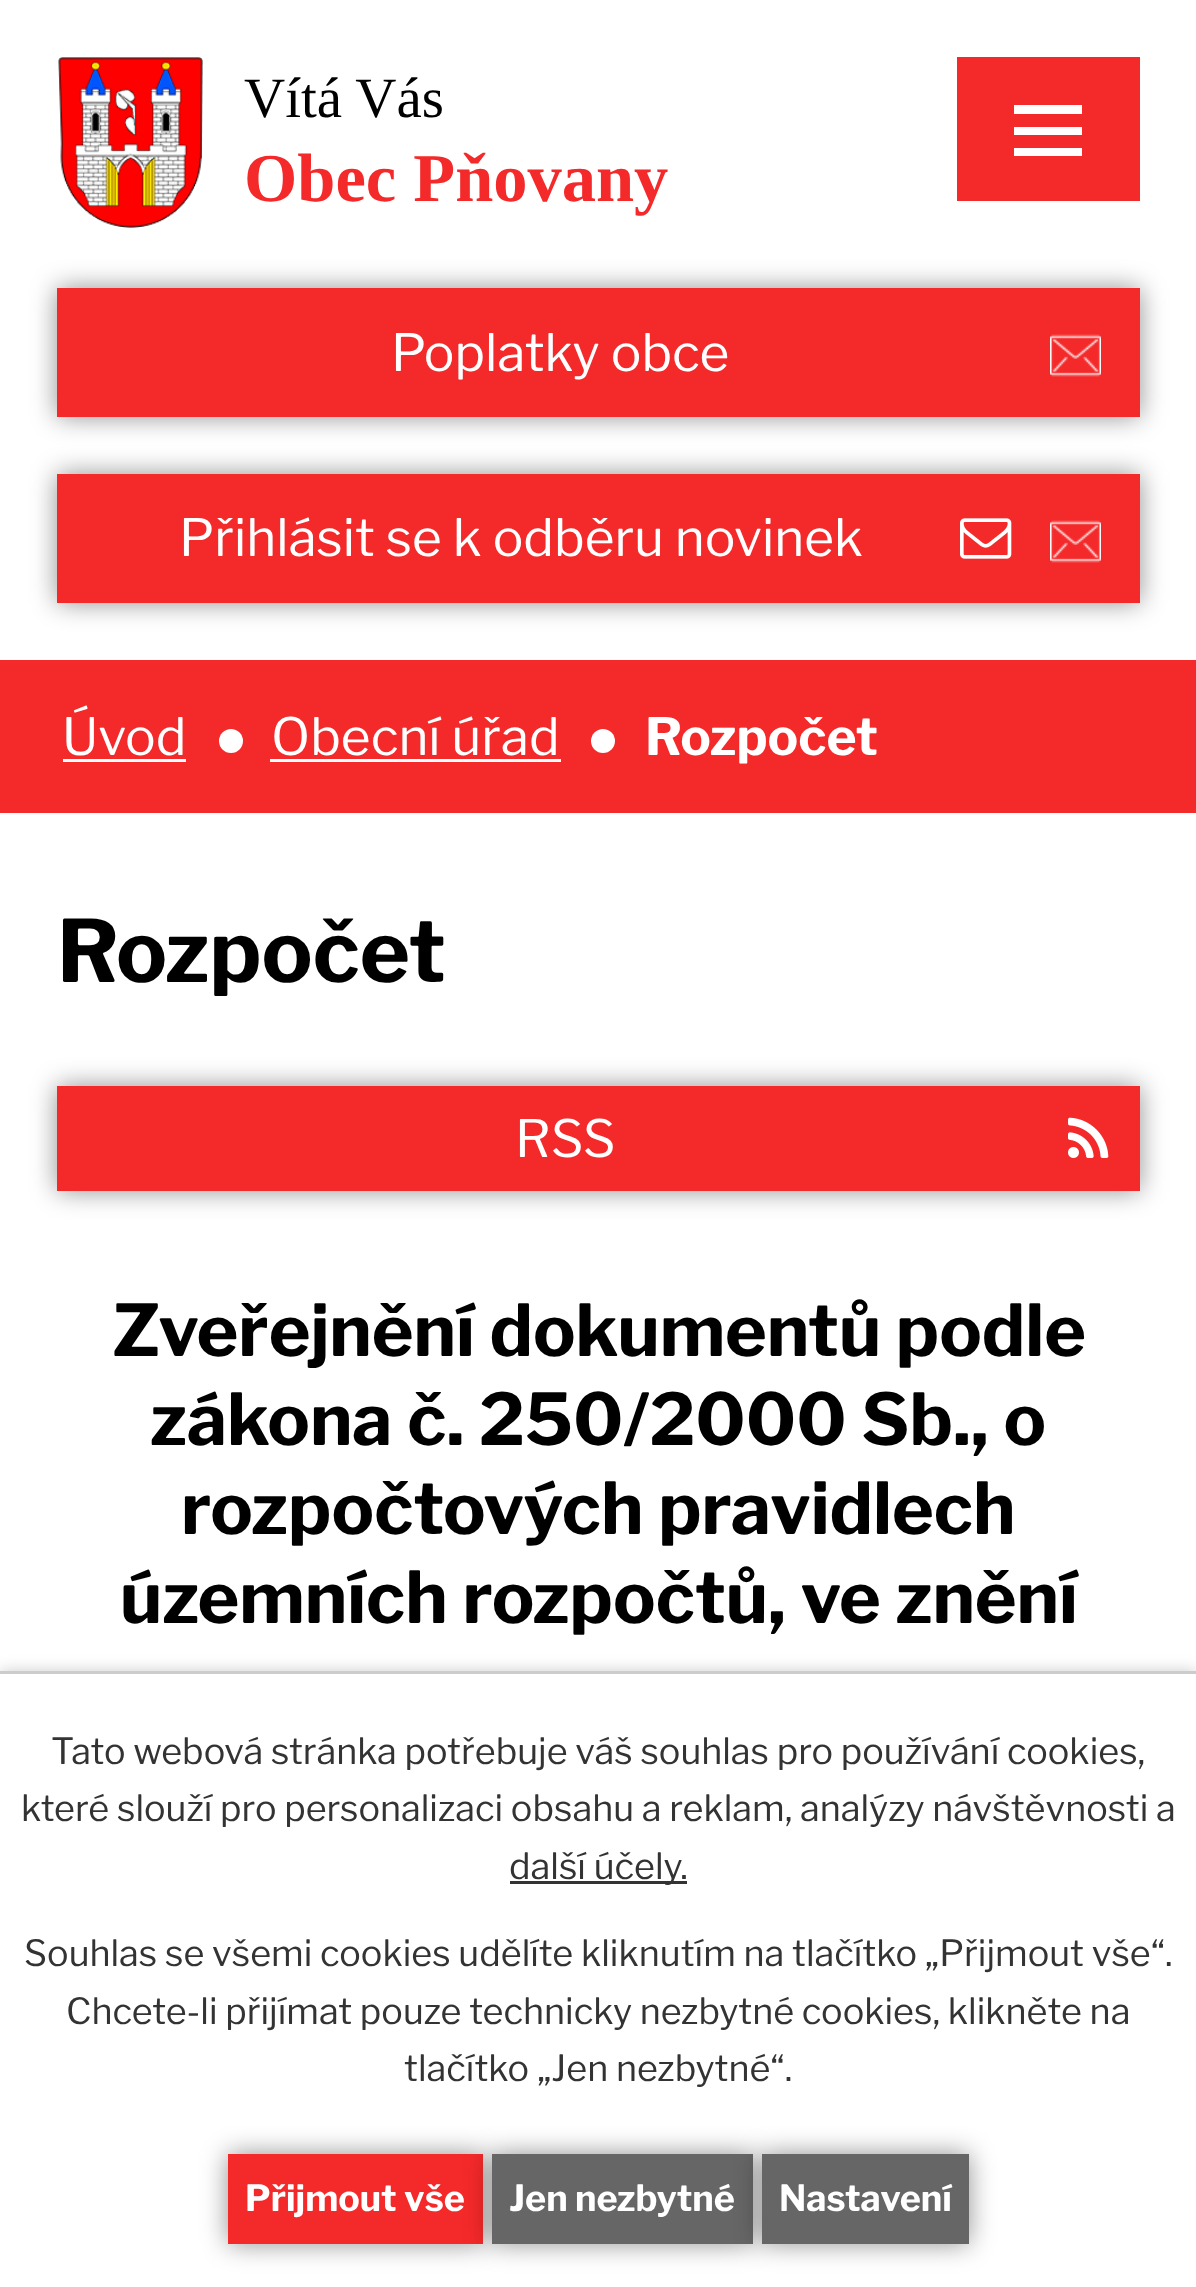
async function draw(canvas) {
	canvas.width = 1196;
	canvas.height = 2287;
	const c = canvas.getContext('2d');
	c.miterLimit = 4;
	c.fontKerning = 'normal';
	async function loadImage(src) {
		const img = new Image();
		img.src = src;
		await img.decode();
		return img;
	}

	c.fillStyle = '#fff';
	c.fillRect(0, 0, 1196, 2287);
	c.drawImage(await loadImage('img1.png'), 58, 57, 145, 171);
	c.font = '57px Liberation Serif';
	c.fillStyle = '#000';
	c.fillText('Vítá Vás', 244, 117);
	c.font = 'bold 68.5px Liberation Serif';
	c.fillStyle = '#f4292a';
	c.fillText('Obec Pňovany', 244, 201);
	c.fillStyle = '#0000006e';
	c.filter = 'blur(13px)';
	c.beginPath();
	c.rect(57, 288, 1083, 129);
	c.fill();
	c.filter = 'none';
	c.fillStyle = '#f4292a';
	c.fillRect(57, 288, 1083, 129);
	c.font = '51.25px Libre Franklin';
	c.fillStyle = '#fff';
	c.fillText('Poplatky obce', 391, 371);
	c.drawImage(await loadImage('img2.png'), 1050, 334, 51, 43);
	c.fillStyle = '#0000006e';
	c.filter = 'blur(13px)';
	c.beginPath();
	c.rect(57, 474, 1083, 129);
	c.fill();
	c.filter = 'none';
	c.fillStyle = '#f4292a';
	c.fillRect(57, 474, 1083, 129);
	c.fillStyle = '#fff';
	c.fillText('Přihlásit se k odběru novinek', 179, 556);
	c.drawImage(await loadImage('img3.png'), 960, 518, 52, 41);
	c.drawImage(await loadImage('img2.png'), 1050, 520, 51, 43);
	c.fillStyle = '#f4292a';
	c.fillRect(957, 57, 183, 144);
	c.fillStyle = '#fff';
	c.beginPath();
	c.moveTo(1014, 156);
	c.lineTo(1014, 148);
	c.lineTo(1082, 148);
	c.lineTo(1082, 156);
	c.closePath();
	c.moveTo(1014, 105);
	c.lineTo(1082, 105);
	c.lineTo(1082, 114);
	c.lineTo(1014, 114);
	c.closePath();
	c.moveTo(1014, 135);
	c.lineTo(1014, 127);
	c.lineTo(1082, 127);
	c.lineTo(1082, 135);
	c.closePath();
	c.fill();
	c.fillStyle = '#f4292a';
	c.fillRect(0, 660, 1196, 153);
	c.fillStyle = '#fff';
	c.fillText('Úvod', 62, 755);
	c.fillRect(63, 759, 123, 3);
	c.beginPath();
	c.arc(231, 741, 12, 0, 2 * Math.PI);
	c.fill();
	c.fillText('Obecní úřad', 271, 755);
	c.fillRect(270, 759, 291, 3);
	c.beginPath();
	c.arc(603, 741, 12, 0, 2 * Math.PI);
	c.fill();
	c.font = 'bold 51.25px Libre Franklin';
	c.fillText('Rozpočet', 645, 755);
	c.font = 'bold 85.5px Libre Franklin';
	c.fillStyle = '#000';
	c.fillText('Rozpočet', 57, 982);
	c.fillStyle = '#0000006e';
	c.filter = 'blur(13px)';
	c.beginPath();
	c.rect(57, 1086, 1083, 105);
	c.fill();
	c.filter = 'none';
	c.fillStyle = '#f4292a';
	c.fillRect(57, 1086, 1083, 105);
	c.font = '51.25px Libre Franklin';
	c.fillStyle = '#fff';
	c.fillText('RSS', 515, 1157);
	c.drawImage(await loadImage('img4.png'), 1068, 1117, 41, 41);
	c.font = 'bold 71.25px Libre Franklin';
	c.fillStyle = '#000';
	for (const [text, x, y] of [
		['Zveřejnění dokumentů podle', 112, 1356],
		['zákona č. 250/2000 Sb., o', 150, 1445],
		['rozpočtových pravidlech', 181, 1534],
		['územních rozpočtů, ve znění', 120, 1623],
	]) {
		c.fillText(text, x, y);
	}
	c.fillStyle = '#00000033';
	c.filter = 'blur(7.5px)';
	c.beginPath();
	c.rect(0, 1671, 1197, 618);
	c.fill();
	c.filter = 'none';
	c.fillStyle = '#fff';
	c.fillRect(0, 1674, 1196, 613);
	c.fillStyle = '#ccc';
	c.fillRect(0, 1671, 1196, 3);
	c.font = '36px Libre Franklin';
	c.fillStyle = '#333';
	c.fillText('Tato webová stránka potřebuje váš souhlas pro používání cookies,', 51, 1764);
	c.fillText('které slouží pro personalizaci obsahu a reklam, analýzy návštěvnosti a', 21, 1821);
	c.fillRect(510, 1881, 177, 3);
	for (const [text, x, y] of [
		['další účely.', 509, 1879],
		['Souhlas se všemi cookies udělíte kliknutím na tlačítko „Přijmout vše“.', 24, 1966],
		['Chcete-li přijímat pouze technicky nezbytné cookies, klikněte na', 66, 2024],
		['tlačítko „Jen nezbytné“.', 404, 2081],
	]) {
		c.fillText(text, x, y);
	}
	c.fillStyle = '#0000006e';
	c.filter = 'blur(13px)';
	c.beginPath();
	c.rect(228, 2154, 255, 90);
	c.fill();
	c.filter = 'none';
	c.fillStyle = '#f4292a';
	c.fillRect(228, 2154, 255, 90);
	c.font = 'bold 36px Libre Franklin';
	c.fillStyle = '#fff';
	c.fillText('Přijmout vše', 245, 2211);
	c.fillStyle = '#0000006e';
	c.filter = 'blur(13px)';
	c.beginPath();
	c.rect(492, 2154, 261, 90);
	c.fill();
	c.filter = 'none';
	c.fillStyle = '#666';
	c.fillRect(492, 2154, 261, 90);
	c.fillStyle = '#fff';
	c.fillText('Jen nezbytné', 509, 2211);
	c.fillStyle = '#0000006e';
	c.filter = 'blur(13px)';
	c.beginPath();
	c.rect(762, 2154, 207, 90);
	c.fill();
	c.filter = 'none';
	c.fillStyle = '#666';
	c.fillRect(762, 2154, 207, 90);
	c.fillStyle = '#fff';
	c.fillText('Nastavení', 779, 2211);
}

draw(document.querySelector('canvas'));
